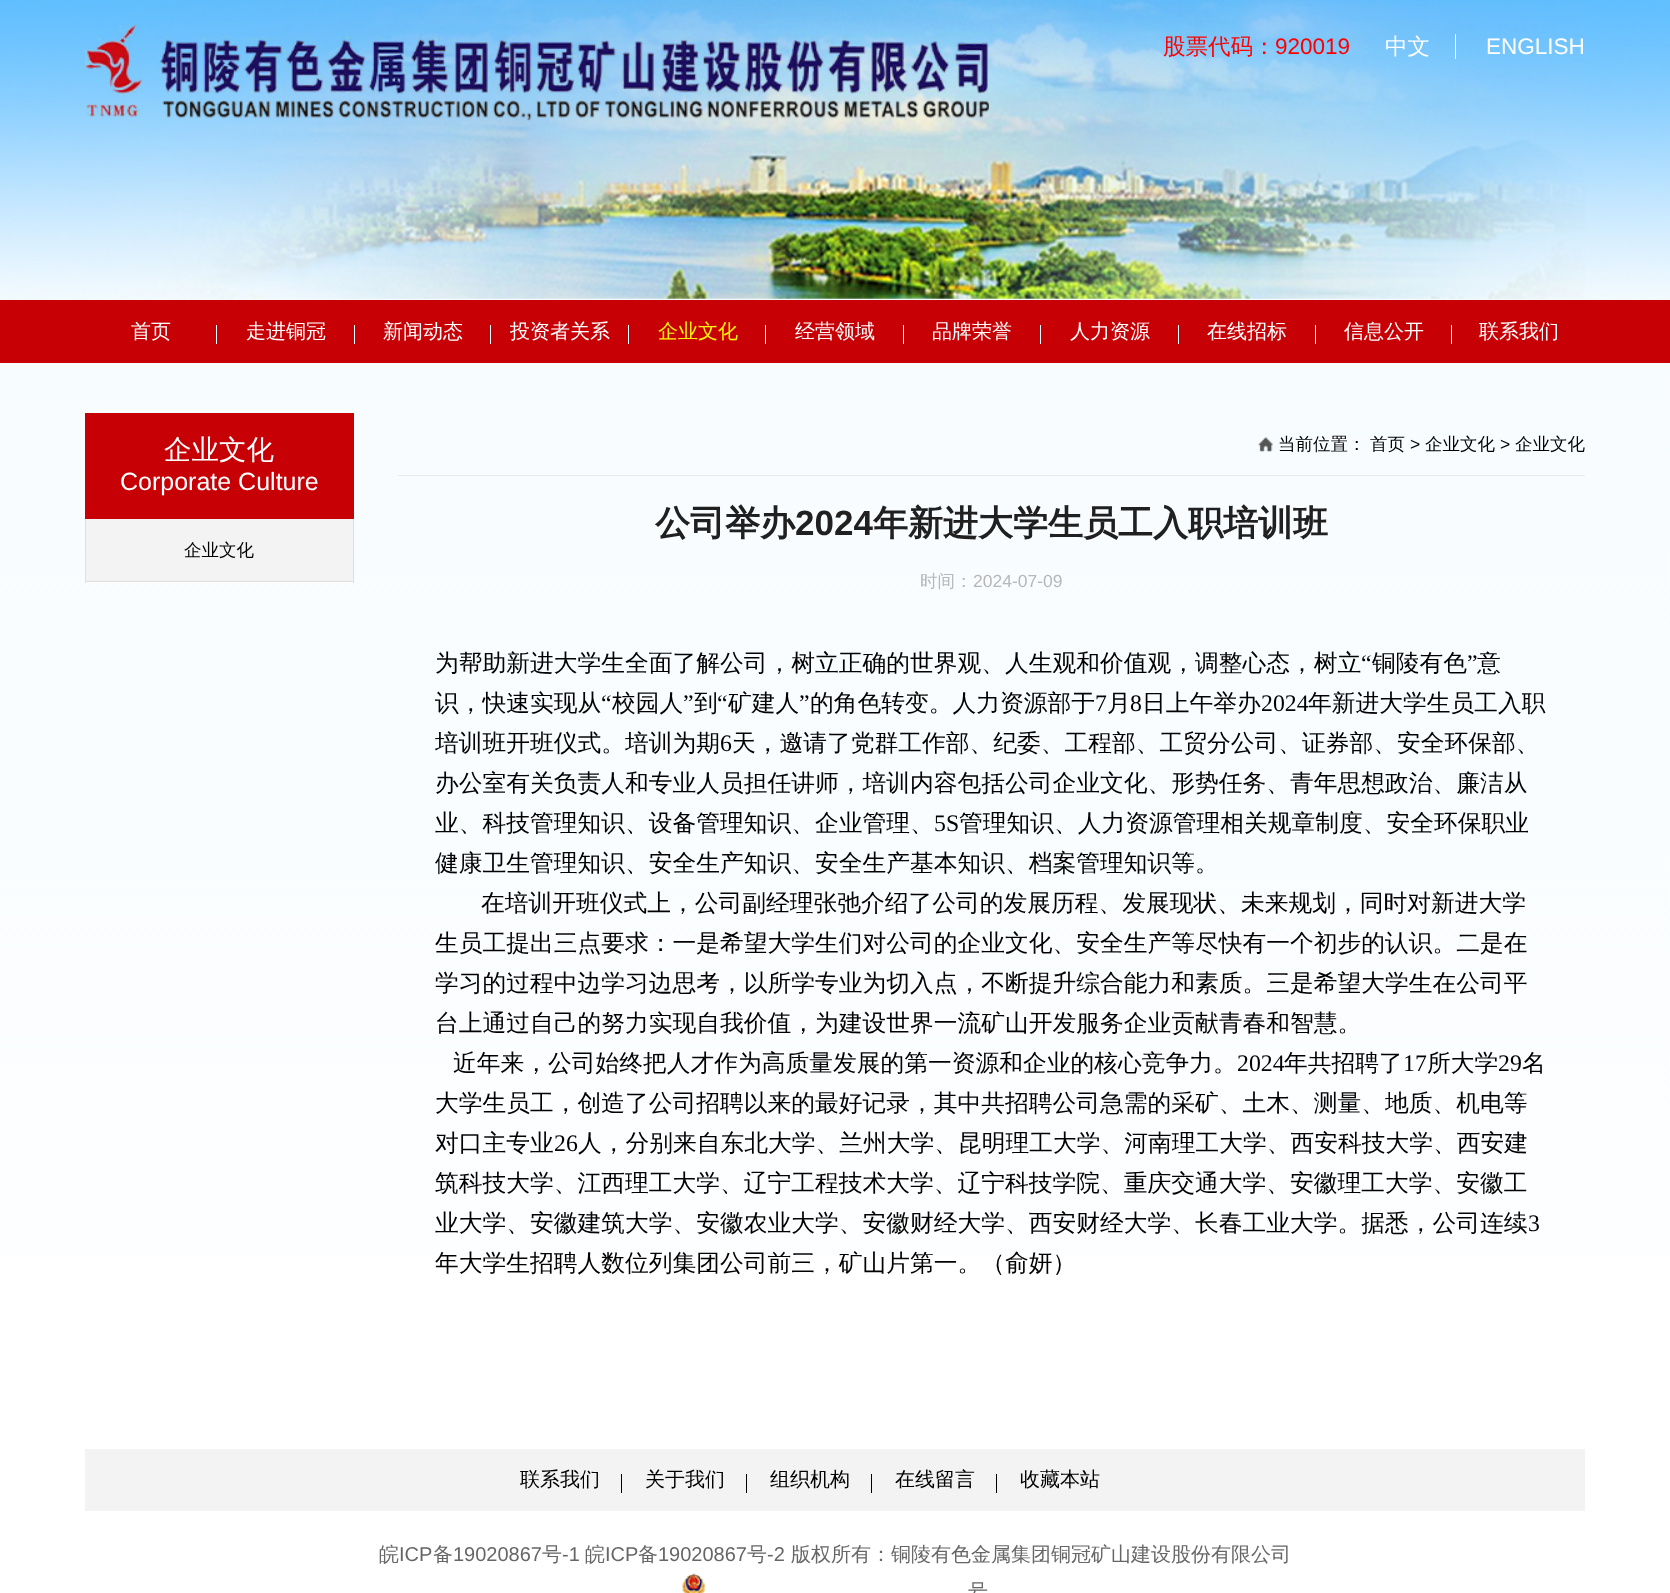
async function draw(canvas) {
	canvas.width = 1670;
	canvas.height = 1593;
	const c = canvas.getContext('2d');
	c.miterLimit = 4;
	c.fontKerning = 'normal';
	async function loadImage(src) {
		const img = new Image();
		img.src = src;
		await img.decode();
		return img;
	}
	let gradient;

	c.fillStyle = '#fff';
	c.fillRect(0, 0, 1670, 1593);
	gradient = c.createLinearGradient(835, 0, 835, 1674);
	gradient.addColorStop(0, '#f5fbff');
	gradient.addColorStop(1, '#fff');
	c.fillStyle = gradient;
	c.fillRect(0, 363, 1670, 892);
	c.drawImage(await loadImage('img1.png'), 0, 0, 1670, 300);
	c.drawImage(await loadImage('img2.png'), 85, 0, 1500, 299);
	c.font = '500 22.5px WenQuanYi Zen Hei';
	c.fillStyle = '#f00';
	c.fillText('股票代码：', 1163, 54);
	c.font = '22.5px Liberation Sans';
	c.fillText('920019', 1275, 54);
	c.font = '500 22.5px WenQuanYi Zen Hei';
	c.fillStyle = '#fff';
	c.fillText('中文', 1385, 54);
	c.fillRect(1455, 34, 1, 25);
	c.font = '22.5px Liberation Sans';
	c.fillText('ENGLISH', 1486, 54);
	c.fillStyle = '#c70005';
	c.fillRect(0, 300, 1670, 63);
	c.font = '500 20px WenQuanYi Zen Hei';
	c.fillStyle = '#fff';
	c.fillText('首页', 131, 338);
	c.fillRect(216, 325, 1, 19);
	c.fillText('走进铜冠', 246, 338);
	c.fillRect(354, 325, 1, 19);
	c.fillText('新闻动态', 383, 338);
	c.fillRect(490, 325, 1, 19);
	c.fillText('投资者关系', 510, 338);
	c.fillRect(628, 325, 1, 19);
	c.fillStyle = '#fff40d';
	c.fillText('企业文化', 658, 338);
	c.fillStyle = '#fff';
	c.fillRect(765, 325, 1, 19);
	c.fillText('经营领域', 795, 338);
	c.fillRect(903, 325, 1, 19);
	c.fillText('品牌荣誉', 932, 338);
	c.fillRect(1040, 325, 1, 19);
	c.fillText('人力资源', 1070, 338);
	c.fillRect(1178, 325, 1, 19);
	c.fillText('在线招标', 1207, 338);
	c.fillRect(1315, 325, 1, 19);
	c.fillText('信息公开', 1344, 338);
	c.fillRect(1451, 325, 1, 19);
	c.fillText('联系我们', 1479, 338);
	c.fillStyle = '#c70005';
	c.fillRect(85, 413, 269, 106);
	c.font = '500 27.5px WenQuanYi Zen Hei';
	c.fillStyle = '#fff';
	c.fillText('企业文化', 164, 459);
	c.font = '25px Liberation Sans';
	c.fillText('Corporate Culture', 120, 490);
	for (const [x, y, w, h, color] of [
		[86, 582, 267, 1, '#fff'],
		[353, 519, 1, 64, '#dfdfdf'],
		[85, 581, 269, 1, '#dfdfdf'],
		[85, 519, 1, 64, '#dfdfdf'],
		[86, 519, 267, 62, '#f3f3f3'],
	]) {
		c.fillStyle = color;
		c.fillRect(x, y, w, h);
	}
	c.font = '500 17.5px WenQuanYi Zen Hei';
	c.fillStyle = '#000';
	c.fillText('企业文化', 184, 556);
	c.fillStyle = '#eaeaea';
	c.fillRect(398, 475, 1187, 1);
	c.drawImage(await loadImage('img3.png'), 1258, 437, 15, 15);
	c.fillStyle = '#000';
	c.fillText('当前位置：', 1278, 450);
	c.fillText('首页', 1370, 450);
	c.font = '17.5px Liberation Sans';
	c.fillText('>', 1410, 450);
	c.font = '500 17.5px WenQuanYi Zen Hei';
	c.fillText('企业文化', 1425, 450);
	c.font = '17.5px Liberation Sans';
	c.fillText('>', 1500, 450);
	c.font = '500 17.5px WenQuanYi Zen Hei';
	c.fillText('企业文化', 1515, 450);
	c.font = 'bold 35px WenQuanYi Zen Hei';
	c.fillStyle = '#202020';
	c.fillText('公司举办', 655, 535);
	c.font = 'bold 35px Liberation Sans';
	c.fillText('2024', 795, 535);
	c.font = 'bold 35px WenQuanYi Zen Hei';
	c.fillText('年新进大学生员工入职培训班', 873, 535);
	c.font = '500 17.5px WenQuanYi Zen Hei';
	c.fillStyle = '#b7b7b7';
	c.fillText('时间：', 920, 587);
	c.font = '17.5px Liberation Sans';
	c.fillText('2024-07-09', 973, 587);
	c.font = '500 23.75px WenQuanYi Zen Hei';
	c.fillStyle = '#000';
	c.fillText('为帮助新进大学生全面了解公司，树立正确的世界观、人生观和价值观，调整心态，树立', 435, 671);
	c.font = '23.75px Liberation Serif';
	c.fillText('“', 1361, 671);
	c.font = '500 23.75px WenQuanYi Zen Hei';
	c.fillText('铜陵有色', 1372, 671);
	c.font = '23.75px Liberation Serif';
	c.fillText('”', 1467, 671);
	c.font = '500 23.75px WenQuanYi Zen Hei';
	c.fillText('意', 1477, 671);
	c.fillText('识，快速实现从', 435, 711);
	c.font = '23.75px Liberation Serif';
	c.fillText('“', 601, 711);
	c.font = '500 23.75px WenQuanYi Zen Hei';
	c.fillText('校园人', 612, 711);
	c.font = '23.75px Liberation Serif';
	c.fillText('”', 683, 711);
	c.font = '500 23.75px WenQuanYi Zen Hei';
	c.fillText('到', 694, 711);
	c.font = '23.75px Liberation Serif';
	c.fillText('“', 717, 711);
	c.font = '500 23.75px WenQuanYi Zen Hei';
	c.fillText('矿建人', 728, 711);
	c.font = '23.75px Liberation Serif';
	c.fillText('”', 799, 711);
	c.font = '500 23.75px WenQuanYi Zen Hei';
	c.fillText('的角色转变。人力资源部于', 810, 711);
	c.font = '23.75px Liberation Serif';
	c.fillText('7', 1095, 711);
	c.font = '500 23.75px WenQuanYi Zen Hei';
	c.fillText('月', 1107, 711);
	c.font = '23.75px Liberation Serif';
	c.fillText('8', 1130, 711);
	c.font = '500 23.75px WenQuanYi Zen Hei';
	c.fillText('日上午举办', 1142, 711);
	c.font = '23.75px Liberation Serif';
	c.fillText('2024', 1261, 711);
	c.font = '500 23.75px WenQuanYi Zen Hei';
	c.fillText('年新进大学生员工入职', 1308, 711);
	c.fillText('培训班开班仪式。培训为期', 435, 751);
	c.font = '23.75px Liberation Serif';
	c.fillText('6', 720, 751);
	c.font = '500 23.75px WenQuanYi Zen Hei';
	for (const [text, x, y] of [
		['天，邀请了党群工作部、纪委、工程部、工贸分公司、证券部、安全环保部、', 732, 751],
		['办公室有关负责人和专业人员担任讲师，培训内容包括公司企业文化、形势任务、青年思想政治、廉洁从', 435, 791],
		['业、科技管理知识、设备管理知识、企业管理、', 435, 831],
	]) {
		c.fillText(text, x, y);
	}
	c.font = '23.75px Liberation Serif';
	c.fillText('5S', 934, 831);
	c.font = '500 23.75px WenQuanYi Zen Hei';
	for (const [text, x, y] of [
		['管理知识、人力资源管理相关规章制度、安全环保职业', 959, 831],
		['健康卫生管理知识、安全生产知识、安全生产基本知识、档案管理知识等。', 435, 871],
		['在培训开班仪式上，公司副经理张弛介绍了公司的发展历程、发展现状、未来规划，同时对新进大学', 481, 911],
		['生员工提出三点要求：一是希望大学生们对公司的企业文化、安全生产等尽快有一个初步的认识。二是在', 435, 951],
		['学习的过程中边学习边思考，以所学专业为切入点，不断提升综合能力和素质。三是希望大学生在公司平', 435, 991],
		['台上通过自己的努力实现自我价值，为建设世界一流矿山开发服务企业贡献青春和智慧。', 435, 1031],
		['近年来，公司始终把人才作为高质量发展的第一资源和企业的核心竞争力。', 453, 1071],
	]) {
		c.fillText(text, x, y);
	}
	c.font = '23.75px Liberation Serif';
	c.fillText('2024', 1237, 1071);
	c.font = '500 23.75px WenQuanYi Zen Hei';
	c.fillText('年共招聘了', 1284, 1071);
	c.font = '23.75px Liberation Serif';
	c.fillText('17', 1403, 1071);
	c.font = '500 23.75px WenQuanYi Zen Hei';
	c.fillText('所大学', 1427, 1071);
	c.font = '23.75px Liberation Serif';
	c.fillText('29', 1498, 1071);
	c.font = '500 23.75px WenQuanYi Zen Hei';
	for (const [text, x, y] of [
		['名', 1522, 1071],
		['大学生员工，创造了公司招聘以来的最好记录，其中共招聘公司急需的采矿、土木、测量、地质、机电等', 435, 1111],
		['对口主专业', 435, 1151],
	]) {
		c.fillText(text, x, y);
	}
	c.font = '23.75px Liberation Serif';
	c.fillText('26', 554, 1151);
	c.font = '500 23.75px WenQuanYi Zen Hei';
	for (const [text, x, y] of [
		['人，分别来自东北大学、兰州大学、昆明理工大学、河南理工大学、西安科技大学、西安建', 578, 1151],
		['筑科技大学、江西理工大学、辽宁工程技术大学、辽宁科技学院、重庆交通大学、安徽理工大学、安徽工', 435, 1191],
		['业大学、安徽建筑大学、安徽农业大学、安徽财经大学、西安财经大学、长春工业大学。据悉，公司连续', 435, 1231],
	]) {
		c.fillText(text, x, y);
	}
	c.font = '23.75px Liberation Serif';
	c.fillText('3', 1528, 1231);
	c.font = '500 23.75px WenQuanYi Zen Hei';
	c.fillText('年大学生招聘人数位列集团公司前三，矿山片第一。（俞妍）', 435, 1271);
	c.fillStyle = '#f3f3f3';
	c.fillRect(85, 1449, 1500, 62);
	c.font = '500 20px WenQuanYi Zen Hei';
	c.fillStyle = '#000';
	c.fillText('联系我们', 520, 1486);
	c.fillRect(621, 1474, 1, 19);
	c.fillText('关于我们', 645, 1486);
	c.fillRect(746, 1474, 1, 19);
	c.fillText('组织机构', 770, 1486);
	c.fillRect(871, 1474, 1, 19);
	c.fillText('在线留言', 895, 1486);
	c.fillRect(996, 1474, 1, 19);
	c.fillText('收藏本站', 1020, 1486);
	c.fillStyle = '#666';
	c.fillText('皖', 379, 1561);
	c.font = '20px Liberation Sans';
	c.fillText('ICP', 399, 1561);
	c.font = '500 20px WenQuanYi Zen Hei';
	c.fillText('备', 433, 1561);
	c.font = '20px Liberation Sans';
	c.fillText('19020867', 453, 1561);
	c.font = '500 20px WenQuanYi Zen Hei';
	c.fillText('号', 542, 1561);
	c.font = '20px Liberation Sans';
	c.fillText('-1', 562, 1561);
	c.font = '500 20px WenQuanYi Zen Hei';
	c.fillText('皖', 585, 1561);
	c.font = '20px Liberation Sans';
	c.fillText('ICP', 605, 1561);
	c.font = '500 20px WenQuanYi Zen Hei';
	c.fillText('备', 638, 1561);
	c.font = '20px Liberation Sans';
	c.fillText('19020867', 658, 1561);
	c.font = '500 20px WenQuanYi Zen Hei';
	c.fillText('号', 747, 1561);
	c.font = '20px Liberation Sans';
	c.fillText('-2', 767, 1561);
	c.font = '500 20px WenQuanYi Zen Hei';
	c.fillText('版权所有：铜陵有色金属集团铜冠矿山建设股份有限公司', 791, 1561);
	c.drawImage(await loadImage('img4.png'), 682, 1573, 24, 20);
	c.fillText('号', 968, 1598);
}

draw(document.querySelector('canvas'));
